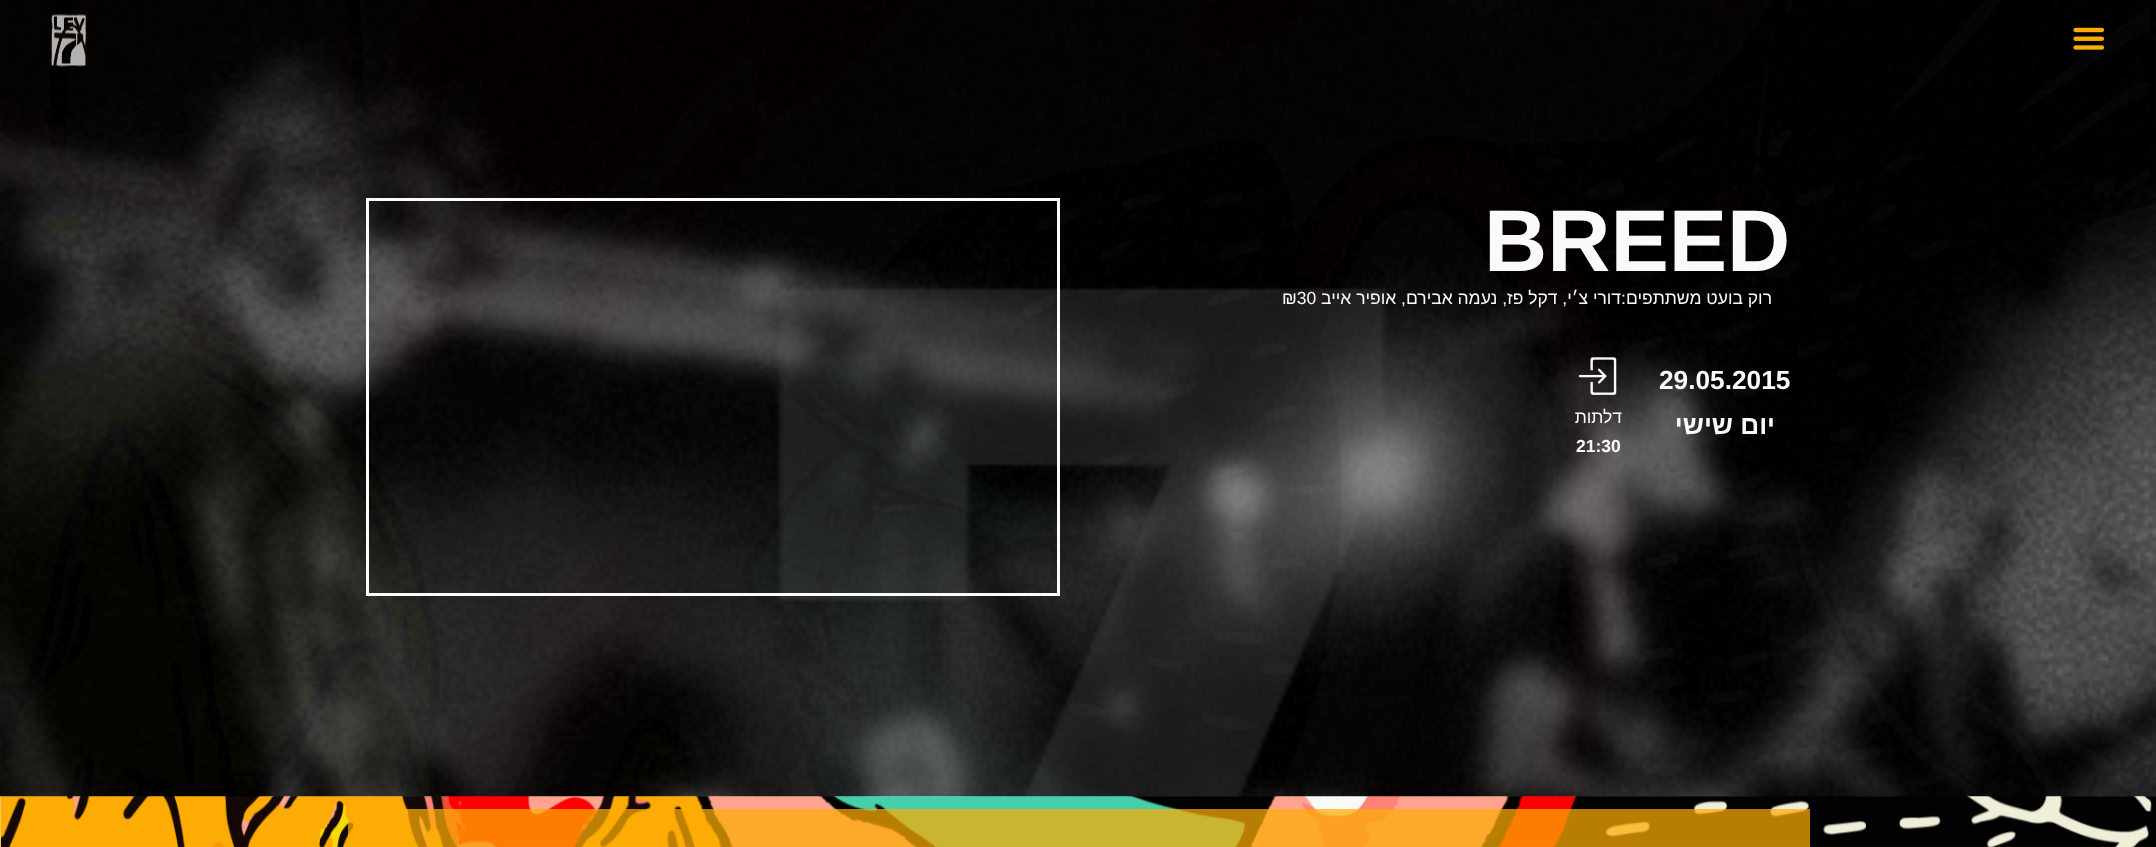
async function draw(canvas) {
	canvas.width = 2156;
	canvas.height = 847;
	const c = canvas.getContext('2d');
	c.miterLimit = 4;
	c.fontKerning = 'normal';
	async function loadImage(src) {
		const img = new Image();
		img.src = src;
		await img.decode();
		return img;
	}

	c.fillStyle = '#fdc247';
	c.fillRect(0, 0, 2156, 847);
	c.drawImage(await loadImage('img1.png'), 0, 0, 2156, 847);
	c.drawImage(await loadImage('img4.png'), 0, 0, 2156, 797);
	c.drawImage(await loadImage('img2.png'), 2073, 27, 31, 23);
	c.drawImage(await loadImage('img3.png'), 50, 13, 38, 54);
	c.font = 'bold 87.5px Liberation Sans';
	c.fillStyle = '#fafafa';
	c.fillText('BREED', 1484, 271);
	c.direction = 'rtl';
	c.font = '17.5px Liberation Sans';
	c.fillText('רוק בועט משתתפים:דורי צ׳י, דקל פז, נעמה אבירם, אופיר אייב', 1772, 304);
	c.direction = 'ltr';
	c.fillText('₪30', 1282, 304);
	c.font = 'bold 26.25px Liberation Sans';
	c.fillText('29.05.2015', 1659, 389);
	c.direction = 'rtl';
	c.fillText('יום שישי', 1775, 434);
	c.drawImage(await loadImage('img5.png'), 1578, 357, 39, 38);
	c.font = '17.5px Liberation Sans';
	c.fillText('דלתות', 1622, 423);
	c.direction = 'ltr';
	c.font = 'bold 17.5px Liberation Sans';
	c.fillText('21:30', 1576, 452);
	c.strokeStyle = '#fffffffa';
	c.lineWidth = 3;
	c.strokeRect(367.5, 199.5, 691, 395);
	c.fillStyle = '#fcac04ba';
	c.fillRect(348, 809, 1462, 38);
}

draw(document.querySelector('canvas'));
